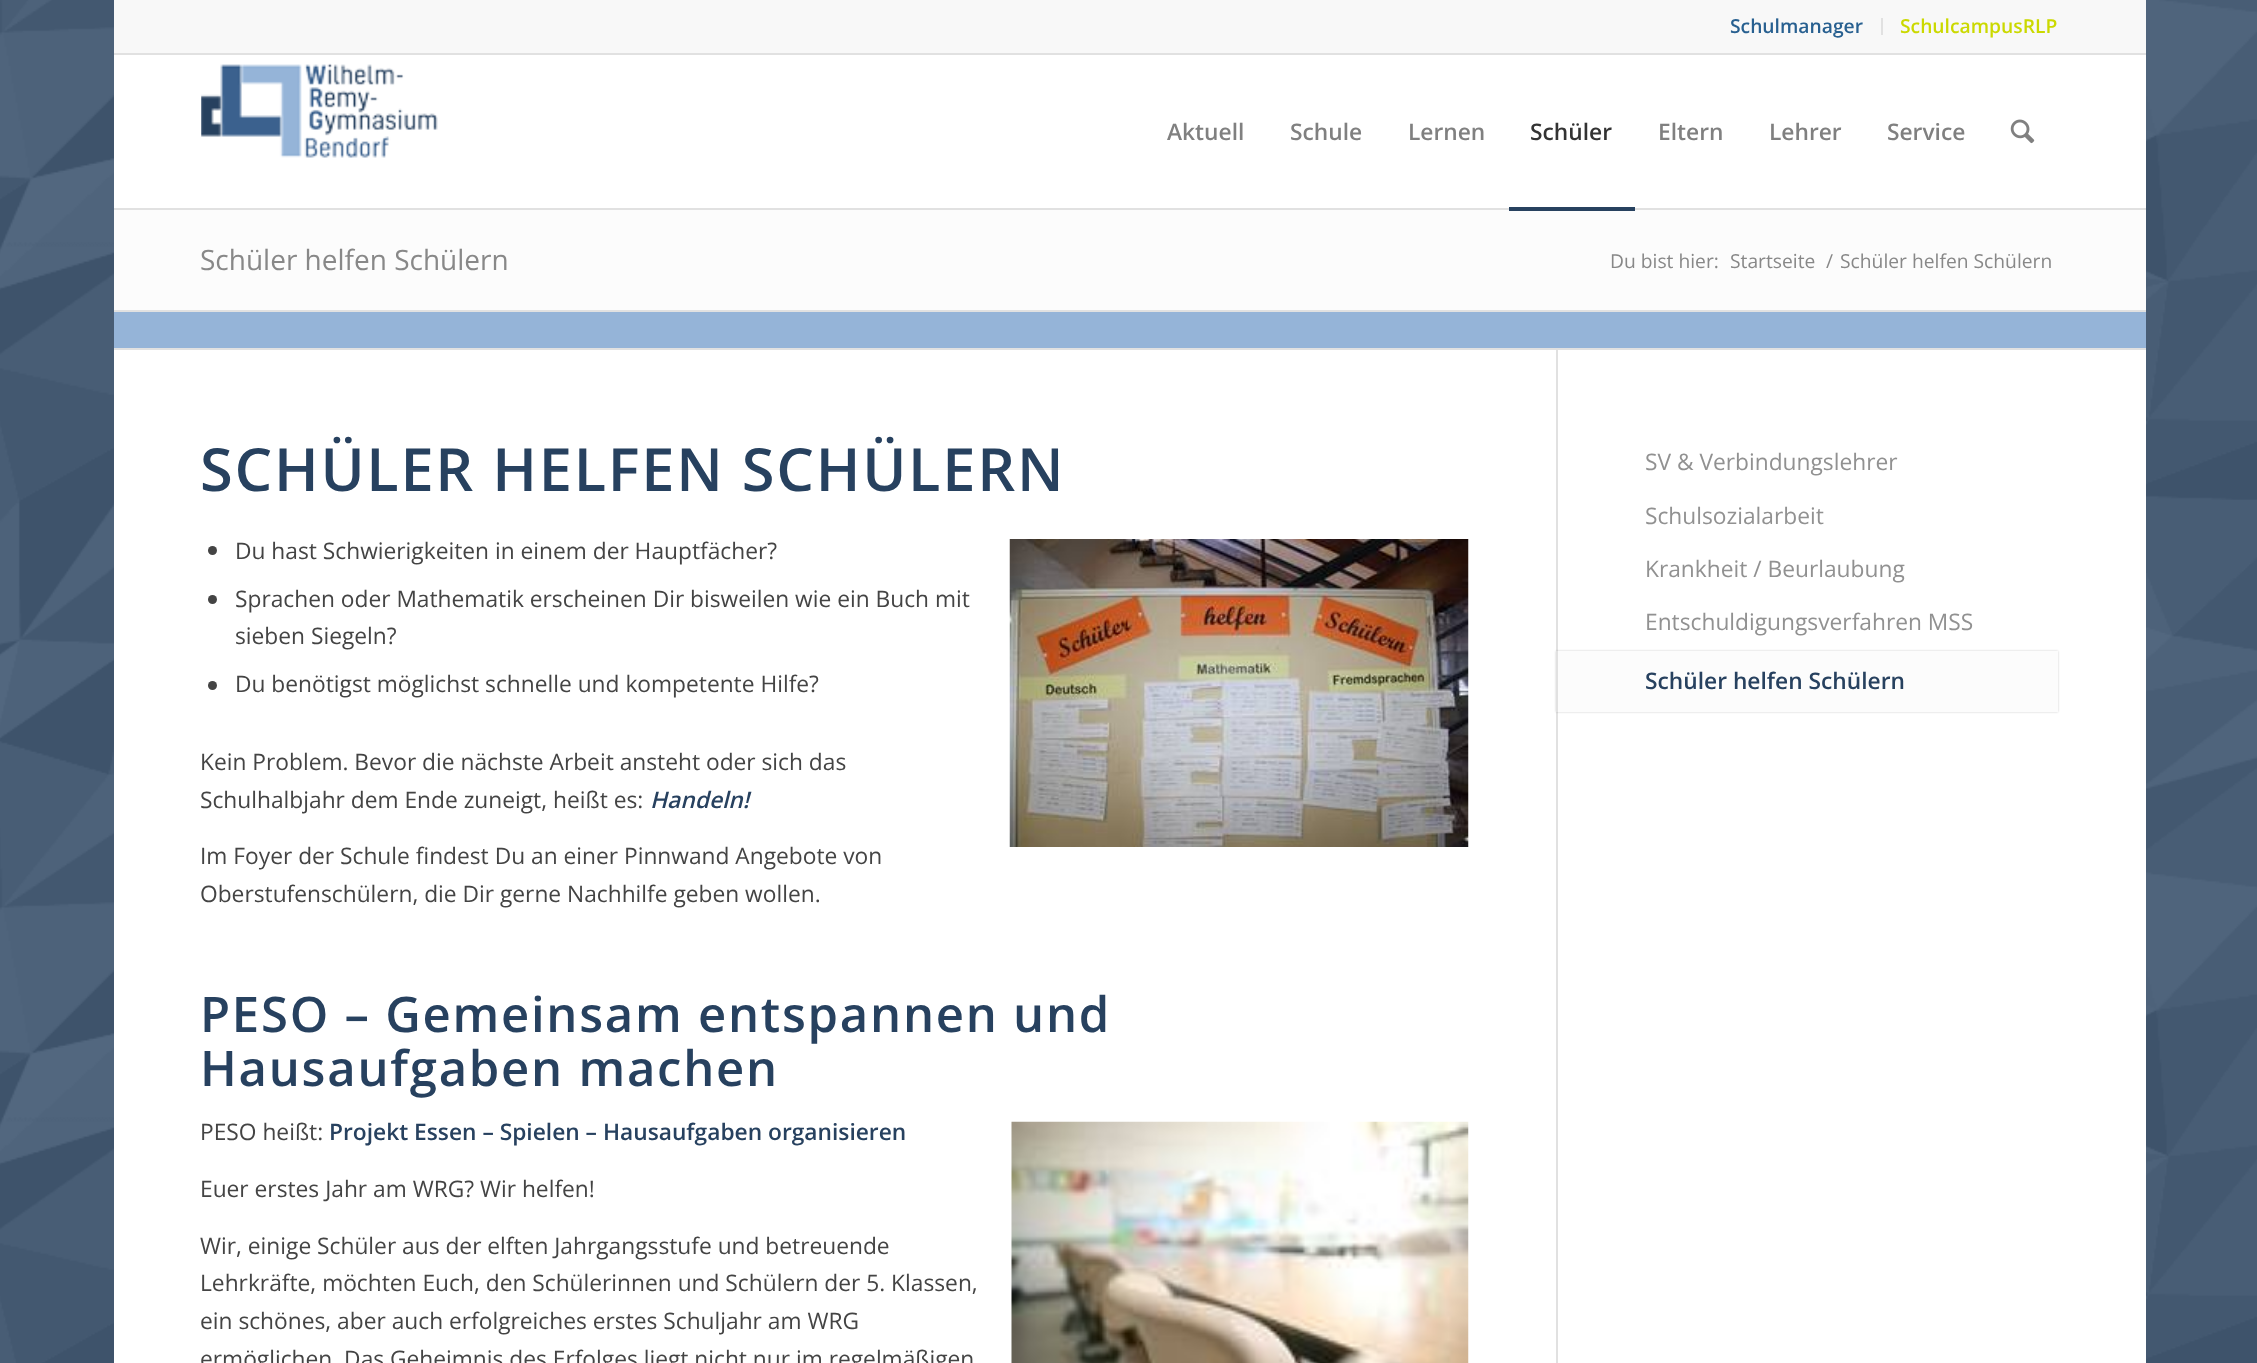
async function draw(canvas) {
	canvas.width = 2257;
	canvas.height = 1363;
	const c = canvas.getContext('2d');
	c.miterLimit = 4;
	c.fontKerning = 'normal';
	async function loadImage(src) {
		const img = new Image();
		img.src = src;
		await img.decode();
		return img;
	}

	c.fillStyle = '#27415f';
	c.fillRect(0, 0, 2257, 1363);
	c.drawImage(await loadImage('img1.png'), 0, 0, 2257, 1363);
	for (const [x, y, w, h, color] of [
		[114, 0, 2032, 53, '#f8f8f8'],
		[114, 53, 2032, 2, '#e1e1e1'],
		[1881, 18, 2, 17, '#e1e1e1'],
	]) {
		c.fillStyle = color;
		c.fillRect(x, y, w, h);
	}
	c.font = '600 19.25px Open Sans';
	c.fillStyle = '#286090';
	c.fillText('Schulmanager', 1730, 33);
	c.fillStyle = '#cbd900';
	c.fillText('SchulcampusRLP', 1900, 33);
	c.fillStyle = '#fff';
	c.fillRect(114, 55, 2032, 1308);
	c.fillStyle = '#e1e1e1';
	c.fillRect(114, 208, 2032, 2);
	c.drawImage(await loadImage('img2.png'), 201, 63, 237, 95);
	c.font = '600 22.75px Open Sans';
	c.fillStyle = '#808080';
	for (const [text, x, y] of [
		['Aktuell', 1167, 140],
		['Schule', 1290, 140],
		['Lernen', 1408, 140],
	]) {
		c.fillText(text, x, y);
	}
	c.fillStyle = '#333';
	c.fillText('Schüler', 1530, 140);
	c.fillStyle = '#fcfcfc';
	c.fillRect(114, 210, 2032, 100);
	c.fillStyle = '#27415f';
	c.fillRect(1509, 207, 126, 4);
	c.fillStyle = '#808080';
	for (const [text, x, y] of [
		['Eltern', 1658, 140],
		['Lehrer', 1769, 140],
		['Service', 1887, 140],
	]) {
		c.fillText(text, x, y);
	}
	c.drawImage(await loadImage('img3.png'), 2010, 119, 25, 25);
	c.font = '28px Open Sans';
	c.fillStyle = '#888';
	c.fillText('Schüler helfen Schülern', 200, 270);
	c.font = '19.25px Open Sans';
	for (const [text, x, y] of [
		['Du bist hier:', 1610, 268],
		['Startseite', 1730, 268],
		['/', 1826, 268],
		['Schüler helfen Schülern', 1840, 268],
	]) {
		c.fillText(text, x, y);
	}
	for (const [x, y, w, h, color] of [
		[114, 310, 2032, 2, '#e1e1e1'],
		[114, 312, 2032, 36, '#95b4d8'],
		[114, 348, 2032, 2, '#e1e1e1'],
		[1556, 350, 2, 1013, '#e1e1e1'],
	]) {
		c.fillStyle = color;
		c.fillRect(x, y, w, h);
	}
	c.letterSpacing = '1.75px';
	c.font = '600 59.5px Open Sans';
	c.fillStyle = '#27415f';
	c.fillText('SCHÜLER HELFEN SCHÜLERN', 200, 491);
	c.fillStyle = '#444';
	c.beginPath();
	c.arc(212.5, 550.5, 4.5, 0, 2 * Math.PI);
	c.fill();
	c.letterSpacing = '0px';
	c.font = '22.75px Open Sans';
	c.fillText('Du hast Schwierigkeiten in einem der Hauptfächer?', 235, 559);
	c.drawImage(await loadImage('img4.png'), 1009, 539, 460, 308);
	c.beginPath();
	c.arc(212.5, 599.5, 4.5, 0, 2 * Math.PI);
	c.fill();
	c.fillText('Sprachen oder Mathematik erscheinen Dir bisweilen wie ein Buch mit', 235, 607);
	c.fillText('sieben Siegeln?', 235, 644);
	c.beginPath();
	c.arc(212.5, 685.5, 4.5, 0, 2 * Math.PI);
	c.fill();
	for (const [text, x, y] of [
		['Du benötigst möglichst schnelle und kompetente Hilfe?', 235, 692],
		['Kein Problem. Bevor die nächste Arbeit ansteht oder sich das', 200, 770],
		['Schulhalbjahr dem Ende zuneigt, heißt es:', 200, 808],
	]) {
		c.fillText(text, x, y);
	}
	c.font = 'italic 600 22.75px Open Sans';
	c.fillStyle = '#27415f';
	c.fillText('Handeln!', 650, 808);
	c.font = '22.75px Open Sans';
	c.fillStyle = '#444';
	c.fillText('Im Foyer der Schule findest Du an einer Pinnwand Angebote von', 200, 864);
	c.fillText('Oberstufenschülern, die Dir gerne Nachhilfe geben wollen.', 200, 902);
	c.letterSpacing = '1.75px';
	c.font = '600 49px Open Sans';
	c.fillStyle = '#27415f';
	c.fillText('PESO – Gemeinsam entspannen und', 200, 1032);
	c.fillText('Hausaufgaben machen', 200, 1086);
	c.letterSpacing = '0px';
	c.font = '22.75px Open Sans';
	c.fillStyle = '#444';
	c.fillText('PESO heißt:', 200, 1140);
	c.font = '600 22.75px Open Sans';
	c.fillStyle = '#27415f';
	c.fillText('Projekt Essen – Spielen – Hausaufgaben organisieren', 329, 1140);
	c.drawImage(await loadImage('img5.png'), 1011, 1121, 458, 242);
	c.font = '22.75px Open Sans';
	c.fillStyle = '#444';
	for (const [text, x, y] of [
		['Euer erstes Jahr am WRG? Wir helfen!', 200, 1197],
		['Wir, einige Schüler aus der elften Jahrgangsstufe und betreuende', 200, 1254],
		['Lehrkräfte, möchten Euch, den Schülerinnen und Schülern der 5. Klassen,', 200, 1291],
		['ein schönes, aber auch erfolgreiches erstes Schuljahr am WRG', 200, 1329],
		['ermöglichen. Das Geheimnis des Erfolges liegt nicht nur im regelmäßigen', 200, 1367],
	]) {
		c.fillText(text, x, y);
	}
	c.fillStyle = '#919191';
	for (const [text, x, y] of [
		['SV & Verbindungslehrer', 1645, 470],
		['Schulsozialarbeit', 1645, 524],
		['Krankheit / Beurlaubung', 1645, 577],
		['Entschuldigungsverfahren MSS', 1645, 630],
	]) {
		c.fillText(text, x, y);
	}
	c.save();
	c.beginPath();
	c.moveTo(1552, 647);
	c.lineTo(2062, 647);
	c.lineTo(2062, 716);
	c.lineTo(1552, 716);
	c.closePath();
	c.moveTo(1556, 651);
	c.lineTo(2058, 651);
	c.lineTo(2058, 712);
	c.lineTo(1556, 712);
	c.closePath();
	c.clip('evenodd');
	c.fillStyle = '#00000033';
	c.filter = 'blur(1px)';
	c.beginPath();
	c.rect(1556, 651, 502, 61);
	c.fill();
	c.filter = 'none';
	c.restore();
	c.fillStyle = '#fcfcfc';
	c.fillRect(1558, 651, 500, 61);
	c.font = '600 22.75px Open Sans';
	c.fillStyle = '#27415f';
	c.fillText('Schüler helfen Schülern', 1645, 689);
}

draw(document.querySelector('canvas'));
